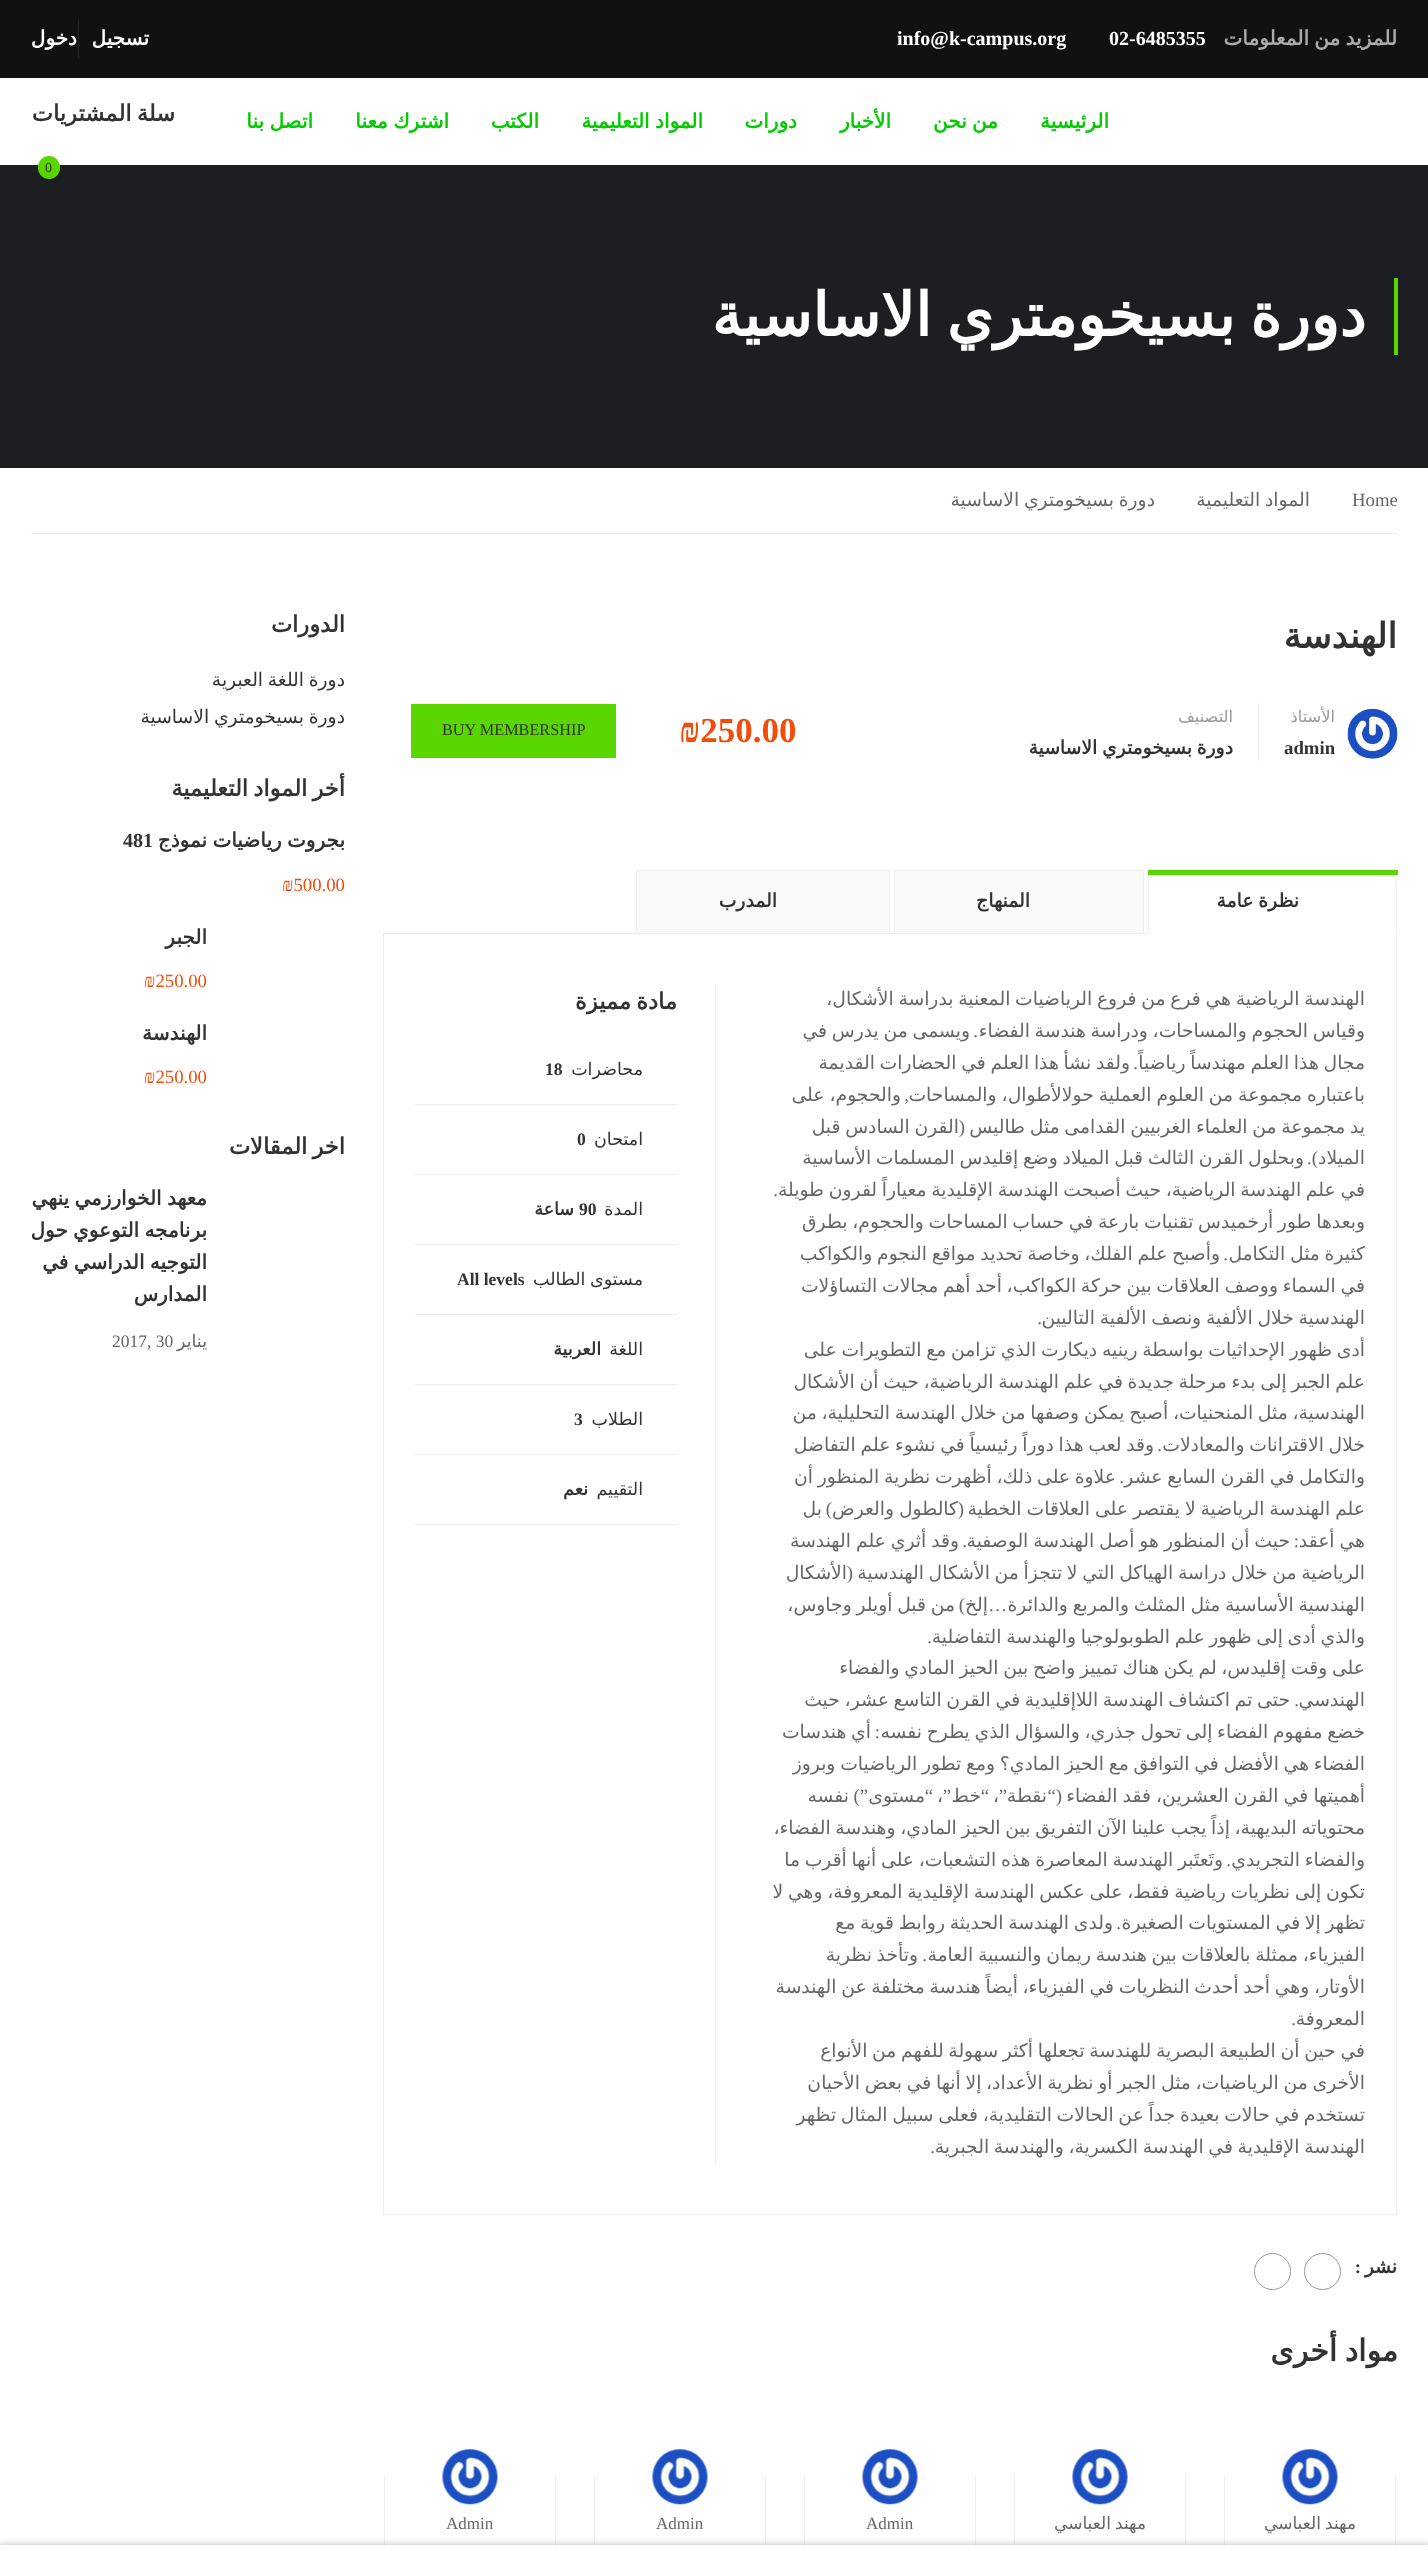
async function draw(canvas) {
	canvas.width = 1428;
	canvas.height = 2551;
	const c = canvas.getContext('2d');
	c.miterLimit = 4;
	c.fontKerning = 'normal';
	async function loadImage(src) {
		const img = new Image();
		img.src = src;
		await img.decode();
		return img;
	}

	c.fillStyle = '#fff';
	c.fillRect(0, 0, 1428, 2551);
	c.fillStyle = '#111';
	c.fillRect(0, 0, 1428, 78);
	c.wordSpacing = '-1px';
	c.direction = 'rtl';
	c.font = 'bold 20px DejaVu Sans';
	c.fillStyle = '#ababab';
	c.fillText('للمزيد من المعلومات', 1397, 45);
	c.wordSpacing = '0px';
	c.direction = 'ltr';
	c.font = 'bold 20px Liberation Serif';
	c.fillStyle = '#fff';
	c.fillText('02-6485355', 1109, 45);
	c.fillText('info@k-campus.org', 897, 45);
	c.fillStyle = '#222';
	c.fillRect(78, 20, 1, 38);
	c.direction = 'rtl';
	c.font = 'bold 20px DejaVu Sans';
	c.fillStyle = '#fff';
	c.fillText('تسجيل', 149, 45);
	c.fillText('دخول', 77, 45);
	c.fillStyle = '#0c0';
	c.fillText('الرئيسية', 1109, 128);
	c.wordSpacing = '-1px';
	c.fillText('من نحن', 998, 128);
	c.wordSpacing = '0px';
	c.fillText('الأخبار', 891, 128);
	c.fillText('دورات', 797, 128);
	c.wordSpacing = '-1px';
	c.fillText('المواد التعليمية', 703, 128);
	c.wordSpacing = '0px';
	c.fillText('الكتب', 539, 128);
	c.wordSpacing = '-1px';
	c.fillText('اشترك معنا', 449, 128);
	c.fillText('اتصل بنا', 313, 128);
	c.wordSpacing = '-2px';
	c.font = 'bold 22.5px DejaVu Sans';
	c.fillStyle = '#333';
	c.fillText('سلة المشتريات', 175, 121);
	c.fillStyle = '#1c1e22';
	c.fillRect(0, 165, 1428, 303);
	c.fillStyle = '#59d600';
	c.beginPath();
	c.roundRect(38, 156, 22, 23, 11);
	c.fill();
	c.wordSpacing = '0px';
	c.direction = 'ltr';
	c.font = '14px Liberation Serif';
	c.fillStyle = '#333';
	c.fillText('0', 45, 172);
	c.fillStyle = '#59d600';
	c.fillRect(1394, 278, 4, 77);
	c.wordSpacing = '-4px';
	c.direction = 'rtl';
	c.font = 'bold 60px DejaVu Sans';
	c.fillStyle = '#fff';
	c.fillText('دورة بسيخومتري الاساسية', 1366, 336);
	c.fillStyle = '#eee';
	c.fillRect(31, 533, 1367, 1);
	c.wordSpacing = '0px';
	c.direction = 'ltr';
	c.font = '18.75px Liberation Serif';
	c.fillStyle = '#666';
	c.fillText('Home', 1352, 506);
	c.wordSpacing = '-1.25px';
	c.direction = 'rtl';
	c.font = '18.75px DejaVu Sans';
	c.fillText('المواد التعليمية', 1310, 506);
	c.fillText('دورة بسيخومتري الاساسية', 1155, 506);
	c.wordSpacing = '0px';
	c.font = 'bold 35px DejaVu Sans';
	c.fillStyle = '#333';
	c.fillText('الهندسة', 1397, 648);
	c.fillStyle = '#eee';
	c.fillRect(1258, 703, 1, 58);
	c.drawImage(await loadImage('img1.png'), 1347, 708, 51, 51);
	c.font = '16.25px DejaVu Sans';
	c.fillStyle = '#999';
	c.fillText('الأستاذ', 1335, 722);
	c.direction = 'ltr';
	c.font = 'bold 18.75px Liberation Serif';
	c.fillStyle = '#333';
	c.fillText('admin', 1284, 754);
	c.direction = 'rtl';
	c.font = '16.25px DejaVu Sans';
	c.fillStyle = '#999';
	c.fillText('التصنيف', 1233, 722);
	c.wordSpacing = '-1.25px';
	c.font = 'bold 18.75px DejaVu Sans';
	c.fillStyle = '#333';
	c.fillText('دورة بسيخومتري الاساسية', 1233, 754);
	c.wordSpacing = '0px';
	c.direction = 'ltr';
	c.font = 'bold 35px Liberation Serif';
	c.fillStyle = '#f24c0a';
	c.fillText('₪250.00', 679, 742);
	c.fillStyle = '#59d600';
	c.fillRect(411, 704, 205, 54);
	c.font = '16.25px Liberation Serif';
	c.fillStyle = '#333';
	c.fillText('BUY MEMBERSHIP', 442, 735);
	for (const [x, y, w, h, color] of [
		[383, 933, 765, 1, '#eee'],
		[1396, 870, 1, 63, '#eee'],
		[1148, 870, 1, 63, '#eee'],
		[1148, 870, 250, 5, '#59d600'],
	]) {
		c.fillStyle = color;
		c.fillRect(x, y, w, h);
	}
	c.wordSpacing = '-1.25px';
	c.direction = 'rtl';
	c.font = 'bold 18.75px DejaVu Sans';
	c.fillStyle = '#333';
	c.fillText('نظرة عامة', 1299, 907);
	for (const [x, y, w, h, color] of [
		[895, 871, 248, 62, '#f9f9f9'],
		[894, 870, 250, 1, '#eee'],
		[1143, 870, 1, 63, '#eee'],
		[894, 870, 1, 63, '#eee'],
	]) {
		c.fillStyle = color;
		c.fillRect(x, y, w, h);
	}
	c.wordSpacing = '0px';
	c.fillStyle = '#333';
	c.fillText('المنهاج', 1030, 907);
	for (const [x, y, w, h, color] of [
		[637, 871, 252, 62, '#f9f9f9'],
		[636, 870, 254, 1, '#eee'],
		[889, 870, 1, 63, '#eee'],
		[636, 870, 1, 63, '#eee'],
	]) {
		c.fillStyle = color;
		c.fillRect(x, y, w, h);
	}
	c.fillStyle = '#333';
	c.fillText('المدرب', 777, 907);
	for (const [x, y, w, h, color] of [
		[1396, 934, 1, 1281, '#eee'],
		[383, 2214, 1015, 1, '#eee'],
		[383, 934, 1, 1281, '#eee'],
		[715, 984, 1, 1180, '#eee'],
	]) {
		c.fillStyle = color;
		c.fillRect(x, y, w, h);
	}
	c.wordSpacing = '-1.25px';
	c.font = '18.75px DejaVu Sans';
	c.fillStyle = '#666';
	c.fillText('الهندسة الرياضية هي فرع من فروع الرياضيات المعنية بدراسة الأشكال،', 1365, 1005);
	c.fillText('وقياس الحجوم والمساحات، ودراسة هندسة الفضاء', 1365, 1037);
	c.wordSpacing = '0px';
	c.font = '18.75px Liberation Serif';
	c.fillText('.', 978, 1037);
	c.wordSpacing = '-1.25px';
	c.font = '18.75px DejaVu Sans';
	c.fillText('ويسمى من يدرس في', 970, 1037);
	c.fillText('مجال هذا العلم مهندساً رياضياً', 1365, 1069);
	c.wordSpacing = '0px';
	c.font = '18.75px Liberation Serif';
	c.fillText('.', 1138, 1069);
	c.wordSpacing = '-1.25px';
	c.font = '18.75px DejaVu Sans';
	c.fillText('ولقد نشأ هذا العلم في الحضارات القديمة', 1130, 1069);
	c.wordSpacing = '-1px';
	c.fillText('باعتباره مجموعة من العلوم العملية حولالأطوال، والمساحات', 1365, 1101);
	c.wordSpacing = '0px';
	c.font = '18.75px Liberation Serif';
	c.fillText(',', 909, 1101);
	c.wordSpacing = '-1px';
	c.font = '18.75px DejaVu Sans';
	c.fillText('والحجوم، على', 901, 1101);
	c.wordSpacing = '-1.25px';
	c.fillText('يد مجموعة من العلماء الغربيين القدامى مثل طاليس', 1365, 1133);
	c.wordSpacing = '0px';
	c.font = '18.75px Liberation Serif';
	c.fillText('(', 965, 1133);
	c.wordSpacing = '-1.25px';
	c.font = '18.75px DejaVu Sans';
	c.fillText('القرن السادس قبل', 959, 1133);
	c.wordSpacing = '0px';
	c.fillText('الميلاد', 1365, 1164);
	c.font = '18.75px Liberation Serif';
	c.fillText(').', 1318, 1164);
	c.wordSpacing = '-1.25px';
	c.font = '18.75px DejaVu Sans';
	c.fillText('وبحلول القرن الثالث قبل الميلاد وضع إقليدس المسلمات الأساسية', 1304, 1164);
	c.fillText('في علم الهندسة الرياضية، حيث أصبحت الهندسة الإقليدية معياراً لقرون طويلة', 1365, 1196);
	c.wordSpacing = '0px';
	c.font = '18.75px Liberation Serif';
	c.fillText('.', 778, 1196);
	c.wordSpacing = '-1.25px';
	c.font = '18.75px DejaVu Sans';
	c.fillText('وبعدها طور أرخميدس تقنيات بارعة في حساب المساحات والحجوم، بطرق', 1365, 1228);
	c.fillText('كثيرة مثل التكامل', 1365, 1260);
	c.wordSpacing = '0px';
	c.font = '18.75px Liberation Serif';
	c.fillText('.', 1228, 1260);
	c.wordSpacing = '-1.25px';
	c.font = '18.75px DejaVu Sans';
	for (const [text, x, y] of [
		['وأصبح علم الفلك، وخاصة تحديد مواقع النجوم والكواكب', 1220, 1260],
		['في السماء ووصف العلاقات بين حركة الكواكب، أحد أهم مجالات التساؤلات', 1365, 1292],
		['الهندسية خلال الألفية ونصف الألفية التاليين', 1365, 1324],
	]) {
		c.fillText(text, x, y);
	}
	c.wordSpacing = '0px';
	c.font = '18.75px Liberation Serif';
	c.fillText('.', 1042, 1324);
	c.wordSpacing = '-1.25px';
	c.font = '18.75px DejaVu Sans';
	for (const [text, x, y] of [
		['أدى ظهور الإحداثيات بواسطة رينيه ديكارت الذي تزامن مع التطويرات على', 1365, 1356],
		['علم الجبر إلى بدء مرحلة جديدة في علم الهندسة الرياضية، حيث أن الأشكال', 1365, 1388],
		['الهندسية، مثل المنحنيات، أصبح يمكن وصفها من خلال الهندسة التحليلية، من', 1365, 1419],
		['خلال الاقترانات والمعادلات', 1365, 1451],
	]) {
		c.fillText(text, x, y);
	}
	c.wordSpacing = '0px';
	c.font = '18.75px Liberation Serif';
	c.fillText('.', 1162, 1451);
	c.wordSpacing = '-1.25px';
	c.font = '18.75px DejaVu Sans';
	c.fillText('وقد لعب هذا دوراً رئيسياً في نشوء علم التفاضل', 1154, 1451);
	c.fillText('والتكامل في القرن السابع عشر', 1365, 1483);
	c.wordSpacing = '0px';
	c.font = '18.75px Liberation Serif';
	c.fillText('.', 1124, 1483);
	c.wordSpacing = '-1.25px';
	c.font = '18.75px DejaVu Sans';
	c.fillText('علاوة على ذلك، أظهرت نظرية المنظور أن', 1116, 1483);
	c.wordSpacing = '-1px';
	c.fillText('علم الهندسة الرياضية لا يقتصر على العلاقات الخطية', 1365, 1515);
	c.wordSpacing = '0px';
	c.font = '18.75px Liberation Serif';
	c.fillText('(', 964, 1515);
	c.wordSpacing = '-1px';
	c.font = '18.75px DejaVu Sans';
	c.fillText('كالطول والعرض', 958, 1515);
	c.wordSpacing = '0px';
	c.font = '18.75px Liberation Serif';
	c.fillText(')', 832, 1515);
	c.font = '18.75px DejaVu Sans';
	c.fillText('بل', 822, 1515);
	c.wordSpacing = '-1px';
	c.fillText('هي أعقد', 1365, 1547);
	c.wordSpacing = '0px';
	c.font = '18.75px Liberation Serif';
	c.fillText(':', 1299, 1547);
	c.wordSpacing = '-1px';
	c.font = '18.75px DejaVu Sans';
	c.fillText('حيث أن المنظور هو أصل الهندسة الوصفية', 1290, 1547);
	c.wordSpacing = '0px';
	c.font = '18.75px Liberation Serif';
	c.fillText('.', 967, 1547);
	c.wordSpacing = '-1px';
	c.font = '18.75px DejaVu Sans';
	c.fillText('وقد أثري علم الهندسة', 959, 1547);
	c.wordSpacing = '-1.25px';
	c.fillText('الرياضية من خلال دراسة الهياكل التي لا تتجزأ من الأشكال الهندسية', 1365, 1579);
	c.wordSpacing = '0px';
	c.font = '18.75px Liberation Serif';
	c.fillText('(', 853, 1579);
	c.font = '18.75px DejaVu Sans';
	c.fillText('الأشكال', 847, 1579);
	c.wordSpacing = '-1.25px';
	c.fillText('الهندسية الأساسية مثل المثلث والمربع والدائرة', 1365, 1611);
	c.wordSpacing = '0px';
	c.font = '18.75px Liberation Serif';
	c.fillText('…', 1007, 1611);
	c.font = '18.75px DejaVu Sans';
	c.fillText('إلخ', 988, 1611);
	c.font = '18.75px Liberation Serif';
	c.fillText(')', 965, 1611);
	c.wordSpacing = '-1.25px';
	c.font = '18.75px DejaVu Sans';
	c.fillText('من قبل أويلر وجاوس،', 955, 1611);
	c.fillText('والذي أدى إلى ظهور علم الطوبولوجيا والهندسة التفاضلية', 1365, 1643);
	c.wordSpacing = '0px';
	c.font = '18.75px Liberation Serif';
	c.fillText('.', 932, 1643);
	c.wordSpacing = '-1.25px';
	c.font = '18.75px DejaVu Sans';
	c.fillText('على وقت إقليدس، لم يكن هناك تمييز واضح بين الحيز المادي والفضاء', 1365, 1674);
	c.wordSpacing = '0px';
	c.fillText('الهندسي', 1365, 1706);
	c.font = '18.75px Liberation Serif';
	c.fillText('.', 1299, 1706);
	c.wordSpacing = '-1.25px';
	c.font = '18.75px DejaVu Sans';
	c.fillText('حتى تم اكتشاف الهندسة اللاإقليدية في القرن التاسع عشر، حيث', 1290, 1706);
	c.fillText('خضع مفهوم الفضاء إلى تحول جذري، والسؤال الذي يطرح نفسه', 1365, 1738);
	c.wordSpacing = '0px';
	c.font = '18.75px Liberation Serif';
	c.fillText(':', 880, 1738);
	c.wordSpacing = '-1.25px';
	c.font = '18.75px DejaVu Sans';
	c.fillText('أي هندسات', 871, 1738);
	c.fillText('الفضاء هي الأفضل في التوافق مع الحيز المادي؟ ومع تطور الرياضيات وبروز', 1365, 1770);
	c.wordSpacing = '-0.75px';
	c.fillText('أهميتها في القرن العشرين، فقد الفضاء', 1365, 1802);
	c.wordSpacing = '0px';
	c.font = '18.75px Liberation Serif';
	c.fillText('(“', 1062, 1802);
	c.font = '18.75px DejaVu Sans';
	c.fillText('نقطة', 1047, 1802);
	c.font = '18.75px Liberation Serif';
	c.fillText('”', 1007, 1802);
	c.font = '18.75px DejaVu Sans';
	c.fillText('،', 999, 1802);
	c.font = '18.75px Liberation Serif';
	c.fillText('“', 989, 1802);
	c.font = '18.75px DejaVu Sans';
	c.fillText('خط', 981, 1802);
	c.font = '18.75px Liberation Serif';
	c.fillText('”', 951, 1802);
	c.font = '18.75px DejaVu Sans';
	c.fillText('،', 943, 1802);
	c.font = '18.75px Liberation Serif';
	c.fillText('“', 933, 1802);
	c.font = '18.75px DejaVu Sans';
	c.fillText('مستوى', 925, 1802);
	c.font = '18.75px Liberation Serif';
	c.fillText('”)', 868, 1802);
	c.font = '18.75px DejaVu Sans';
	c.fillText('نفسه', 849, 1802);
	c.wordSpacing = '-1.25px';
	c.fillText('محتوياته البديهية، إذاً يجب علينا الآن التفريق بين الحيز المادي، وهندسة الفضاء،', 1365, 1834);
	c.fillText('والفضاء التجريدي', 1365, 1866);
	c.wordSpacing = '0px';
	c.font = '18.75px Liberation Serif';
	c.fillText('.', 1231, 1866);
	c.wordSpacing = '-1.25px';
	c.font = '18.75px DejaVu Sans';
	for (const [text, x, y] of [
		['وتَعتَبر الهندسة المعاصرة هذه التشعبات، على أنها أقرب ما', 1223, 1866],
		['تكون إلى نظريات رياضية فقط، على عكس الهندسة الإقليدية المعروفة، وهي لا', 1365, 1898],
		['تظهر إلا في المستويات الصغيرة', 1365, 1929],
	]) {
		c.fillText(text, x, y);
	}
	c.wordSpacing = '0px';
	c.font = '18.75px Liberation Serif';
	c.fillText('.', 1121, 1929);
	c.wordSpacing = '-1.25px';
	c.font = '18.75px DejaVu Sans';
	c.fillText('ولدى الهندسة الحديثة روابط قوية مع', 1113, 1929);
	c.fillText('الفيزياء، ممثلة بالعلاقات بين هندسة ريمان والنسبية العامة', 1365, 1961);
	c.wordSpacing = '0px';
	c.font = '18.75px Liberation Serif';
	c.fillText('.', 927, 1961);
	c.wordSpacing = '-1.25px';
	c.font = '18.75px DejaVu Sans';
	c.fillText('وتأخذ نظرية', 918, 1961);
	c.fillText('الأوتار، وهي أحد أحدث النظريات في الفيزياء، أيضاً هندسة مختلفة عن الهندسة', 1365, 1993);
	c.wordSpacing = '0px';
	c.fillText('المعروفة', 1365, 2025);
	c.font = '18.75px Liberation Serif';
	c.fillText('.', 1296, 2025);
	c.wordSpacing = '-1.25px';
	c.font = '18.75px DejaVu Sans';
	for (const [text, x, y] of [
		['في حين أن الطبيعة البصرية للهندسة تجعلها أكثر سهولة للفهم من الأنواع', 1365, 2057],
		['الأخرى من الرياضيات، مثل الجبر أو نظرية الأعداد، إلا أنها في بعض الأحيان', 1365, 2089],
		['تستخدم في حالات بعيدة جداً عن الحالات التقليدية، فعلى سبيل المثال تظهر', 1365, 2121],
		['الهندسة الإقليدية في الهندسة الكسرية، والهندسة الجبرية', 1365, 2153],
	]) {
		c.fillText(text, x, y);
	}
	c.wordSpacing = '0px';
	c.font = '18.75px Liberation Serif';
	c.fillText('.', 935, 2153);
	c.wordSpacing = '-2px';
	c.font = 'bold 22.5px DejaVu Sans';
	c.fillStyle = '#333';
	c.fillText('مادة مميزة', 677, 1009);
	c.fillStyle = '#eee';
	c.fillRect(415, 1104, 263, 1);
	c.wordSpacing = '0px';
	c.font = '17.5px DejaVu Sans';
	c.fillStyle = '#333';
	c.fillText('محاضرات', 643, 1075);
	c.direction = 'ltr';
	c.font = 'bold 17.5px Liberation Serif';
	c.fillText('18', 545, 1075);
	c.fillStyle = '#eee';
	c.fillRect(415, 1174, 263, 1);
	c.direction = 'rtl';
	c.font = '17.5px DejaVu Sans';
	c.fillStyle = '#333';
	c.fillText('امتحان', 643, 1145);
	c.direction = 'ltr';
	c.font = 'bold 17.5px Liberation Serif';
	c.fillText('0', 577, 1145);
	c.fillStyle = '#eee';
	c.fillRect(415, 1244, 263, 1);
	c.direction = 'rtl';
	c.font = '17.5px DejaVu Sans';
	c.fillStyle = '#333';
	c.fillText('المدة', 643, 1215);
	c.direction = 'ltr';
	c.font = 'bold 17.5px Liberation Serif';
	c.fillText('90', 579, 1215);
	c.direction = 'rtl';
	c.font = 'bold 17.5px DejaVu Sans';
	c.fillText('ساعة', 574, 1215);
	c.fillStyle = '#eee';
	c.fillRect(415, 1314, 263, 1);
	c.wordSpacing = '-1px';
	c.font = '17.5px DejaVu Sans';
	c.fillStyle = '#333';
	c.fillText('مستوى الطالب', 643, 1285);
	c.wordSpacing = '0px';
	c.direction = 'ltr';
	c.font = 'bold 17.5px Liberation Serif';
	c.fillText('All levels', 457, 1285);
	c.fillStyle = '#eee';
	c.fillRect(415, 1384, 263, 1);
	c.direction = 'rtl';
	c.font = '17.5px DejaVu Sans';
	c.fillStyle = '#333';
	c.fillText('اللغة', 643, 1355);
	c.font = 'bold 17.5px DejaVu Sans';
	c.fillText('العربية', 601, 1355);
	c.fillStyle = '#eee';
	c.fillRect(415, 1454, 263, 1);
	c.font = '17.5px DejaVu Sans';
	c.fillStyle = '#333';
	c.fillText('الطلاب', 643, 1425);
	c.direction = 'ltr';
	c.font = 'bold 17.5px Liberation Serif';
	c.fillText('3', 574, 1425);
	c.fillStyle = '#eee';
	c.fillRect(415, 1524, 263, 1);
	c.direction = 'rtl';
	c.font = '17.5px DejaVu Sans';
	c.fillStyle = '#333';
	c.fillText('التقييم', 643, 1495);
	c.font = 'bold 17.5px DejaVu Sans';
	c.fillText('نعم', 588, 1495);
	for (const [x, y, w, h, color] of [
		[1395, 2476, 1, 75, '#eee'],
		[1224, 2476, 1, 75, '#eee'],
		[1185, 2476, 1, 75, '#eee'],
		[1014, 2476, 1, 75, '#eee'],
		[975, 2476, 1, 75, '#eee'],
		[804, 2476, 1, 75, '#eee'],
		[765, 2476, 1, 75, '#eee'],
		[594, 2476, 1, 75, '#eee'],
		[555, 2476, 1, 75, '#eee'],
		[384, 2476, 1, 75, '#eee'],
	]) {
		c.fillStyle = color;
		c.fillRect(x, y, w, h);
	}
	c.fillStyle = '#2a2a2a66';
	c.filter = 'blur(4px)';
	c.beginPath();
	c.rect(-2, 2546, 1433, 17);
	c.fill();
	c.filter = 'none';
	c.fillStyle = '#fff';
	c.fillRect(0, 2545, 1428, 6);
	c.font = 'bold 18.75px DejaVu Sans';
	c.fillStyle = '#333';
	c.fillText('نشر', 1397, 2273);
	c.font = 'bold 18.75px Liberation Serif';
	c.fillText(':', 1361, 2273);
	c.beginPath();
	c.arc(1322.5, 2271.5, 18, 0, 2 * Math.PI);
	c.strokeStyle = '#999';
	c.stroke();
	c.beginPath();
	c.arc(1272.5, 2271.5, 18, 0, 2 * Math.PI);
	c.stroke();
	c.wordSpacing = '-2px';
	c.font = 'bold 30px DejaVu Sans';
	c.fillText('مواد أخرى', 1398, 2361);
	c.drawImage(await loadImage('img2.png'), 1282, 2449, 56, 56);
	c.wordSpacing = '-1.25px';
	c.font = '17px DejaVu Sans';
	c.fillStyle = '#666';
	c.fillText('مهند العباسي', 1356, 2529);
	c.drawImage(await loadImage('img3.png'), 1072, 2449, 56, 56);
	c.fillText('مهند العباسي', 1146, 2529);
	c.drawImage(await loadImage('img4.png'), 862, 2449, 56, 56);
	c.wordSpacing = '0px';
	c.direction = 'ltr';
	c.font = '17px Liberation Serif';
	c.fillText('Admin', 866, 2529);
	c.drawImage(await loadImage('img5.png'), 652, 2449, 56, 56);
	c.fillText('Admin', 656, 2529);
	c.drawImage(await loadImage('img2.png'), 442, 2449, 56, 56);
	c.fillText('Admin', 446, 2529);
	c.direction = 'rtl';
	c.font = 'bold 22.5px DejaVu Sans';
	c.fillStyle = '#333';
	c.fillText('الدورات', 345, 632);
	c.wordSpacing = '-1.25px';
	c.font = '18.75px DejaVu Sans';
	c.fillText('دورة اللغة العبرية', 345, 686);
	c.fillText('دورة بسيخومتري الاساسية', 345, 723);
	c.wordSpacing = '-2px';
	c.font = 'bold 22.5px DejaVu Sans';
	c.fillText('أخر المواد التعليمية', 345, 796);
	c.wordSpacing = '-1px';
	c.font = 'bold 20px DejaVu Sans';
	c.fillText('بجروت رياضيات نموذج', 345, 847);
	c.wordSpacing = '0px';
	c.direction = 'ltr';
	c.font = 'bold 20px Liberation Serif';
	c.fillText('481', 123, 847);
	c.font = '18.75px Liberation Serif';
	c.fillStyle = '#f24c0a';
	c.fillText('₪500.00', 282, 891);
	c.direction = 'rtl';
	c.font = 'bold 20px DejaVu Sans';
	c.fillStyle = '#333';
	c.fillText('الجبر', 207, 944);
	c.direction = 'ltr';
	c.font = '18.75px Liberation Serif';
	c.fillStyle = '#f24c0a';
	c.fillText('₪250.00', 144, 987);
	c.direction = 'rtl';
	c.font = 'bold 20px DejaVu Sans';
	c.fillStyle = '#333';
	c.fillText('الهندسة', 207, 1040);
	c.direction = 'ltr';
	c.font = '18.75px Liberation Serif';
	c.fillStyle = '#f24c0a';
	c.fillText('₪250.00', 144, 1083);
	c.wordSpacing = '-2px';
	c.direction = 'rtl';
	c.font = 'bold 22.5px DejaVu Sans';
	c.fillStyle = '#333';
	c.fillText('اخر المقالات', 345, 1154);
	c.wordSpacing = '-1px';
	c.font = 'bold 20px DejaVu Sans';
	for (const [text, x, y] of [
		['معهد الخوارزمي ينهي', 207, 1205],
		['برنامجه التوعوي حول', 207, 1237],
		['التوجيه الدراسي في', 207, 1269],
	]) {
		c.fillText(text, x, y);
	}
	c.wordSpacing = '0px';
	c.fillText('المدارس', 207, 1301);
	c.font = '17.5px DejaVu Sans';
	c.fillStyle = '#666';
	c.fillText('يناير', 207, 1347);
	c.direction = 'ltr';
	c.font = '17.5px Liberation Serif';
	c.fillText('2017, 30', 112, 1347);
}

draw(document.querySelector('canvas'));
